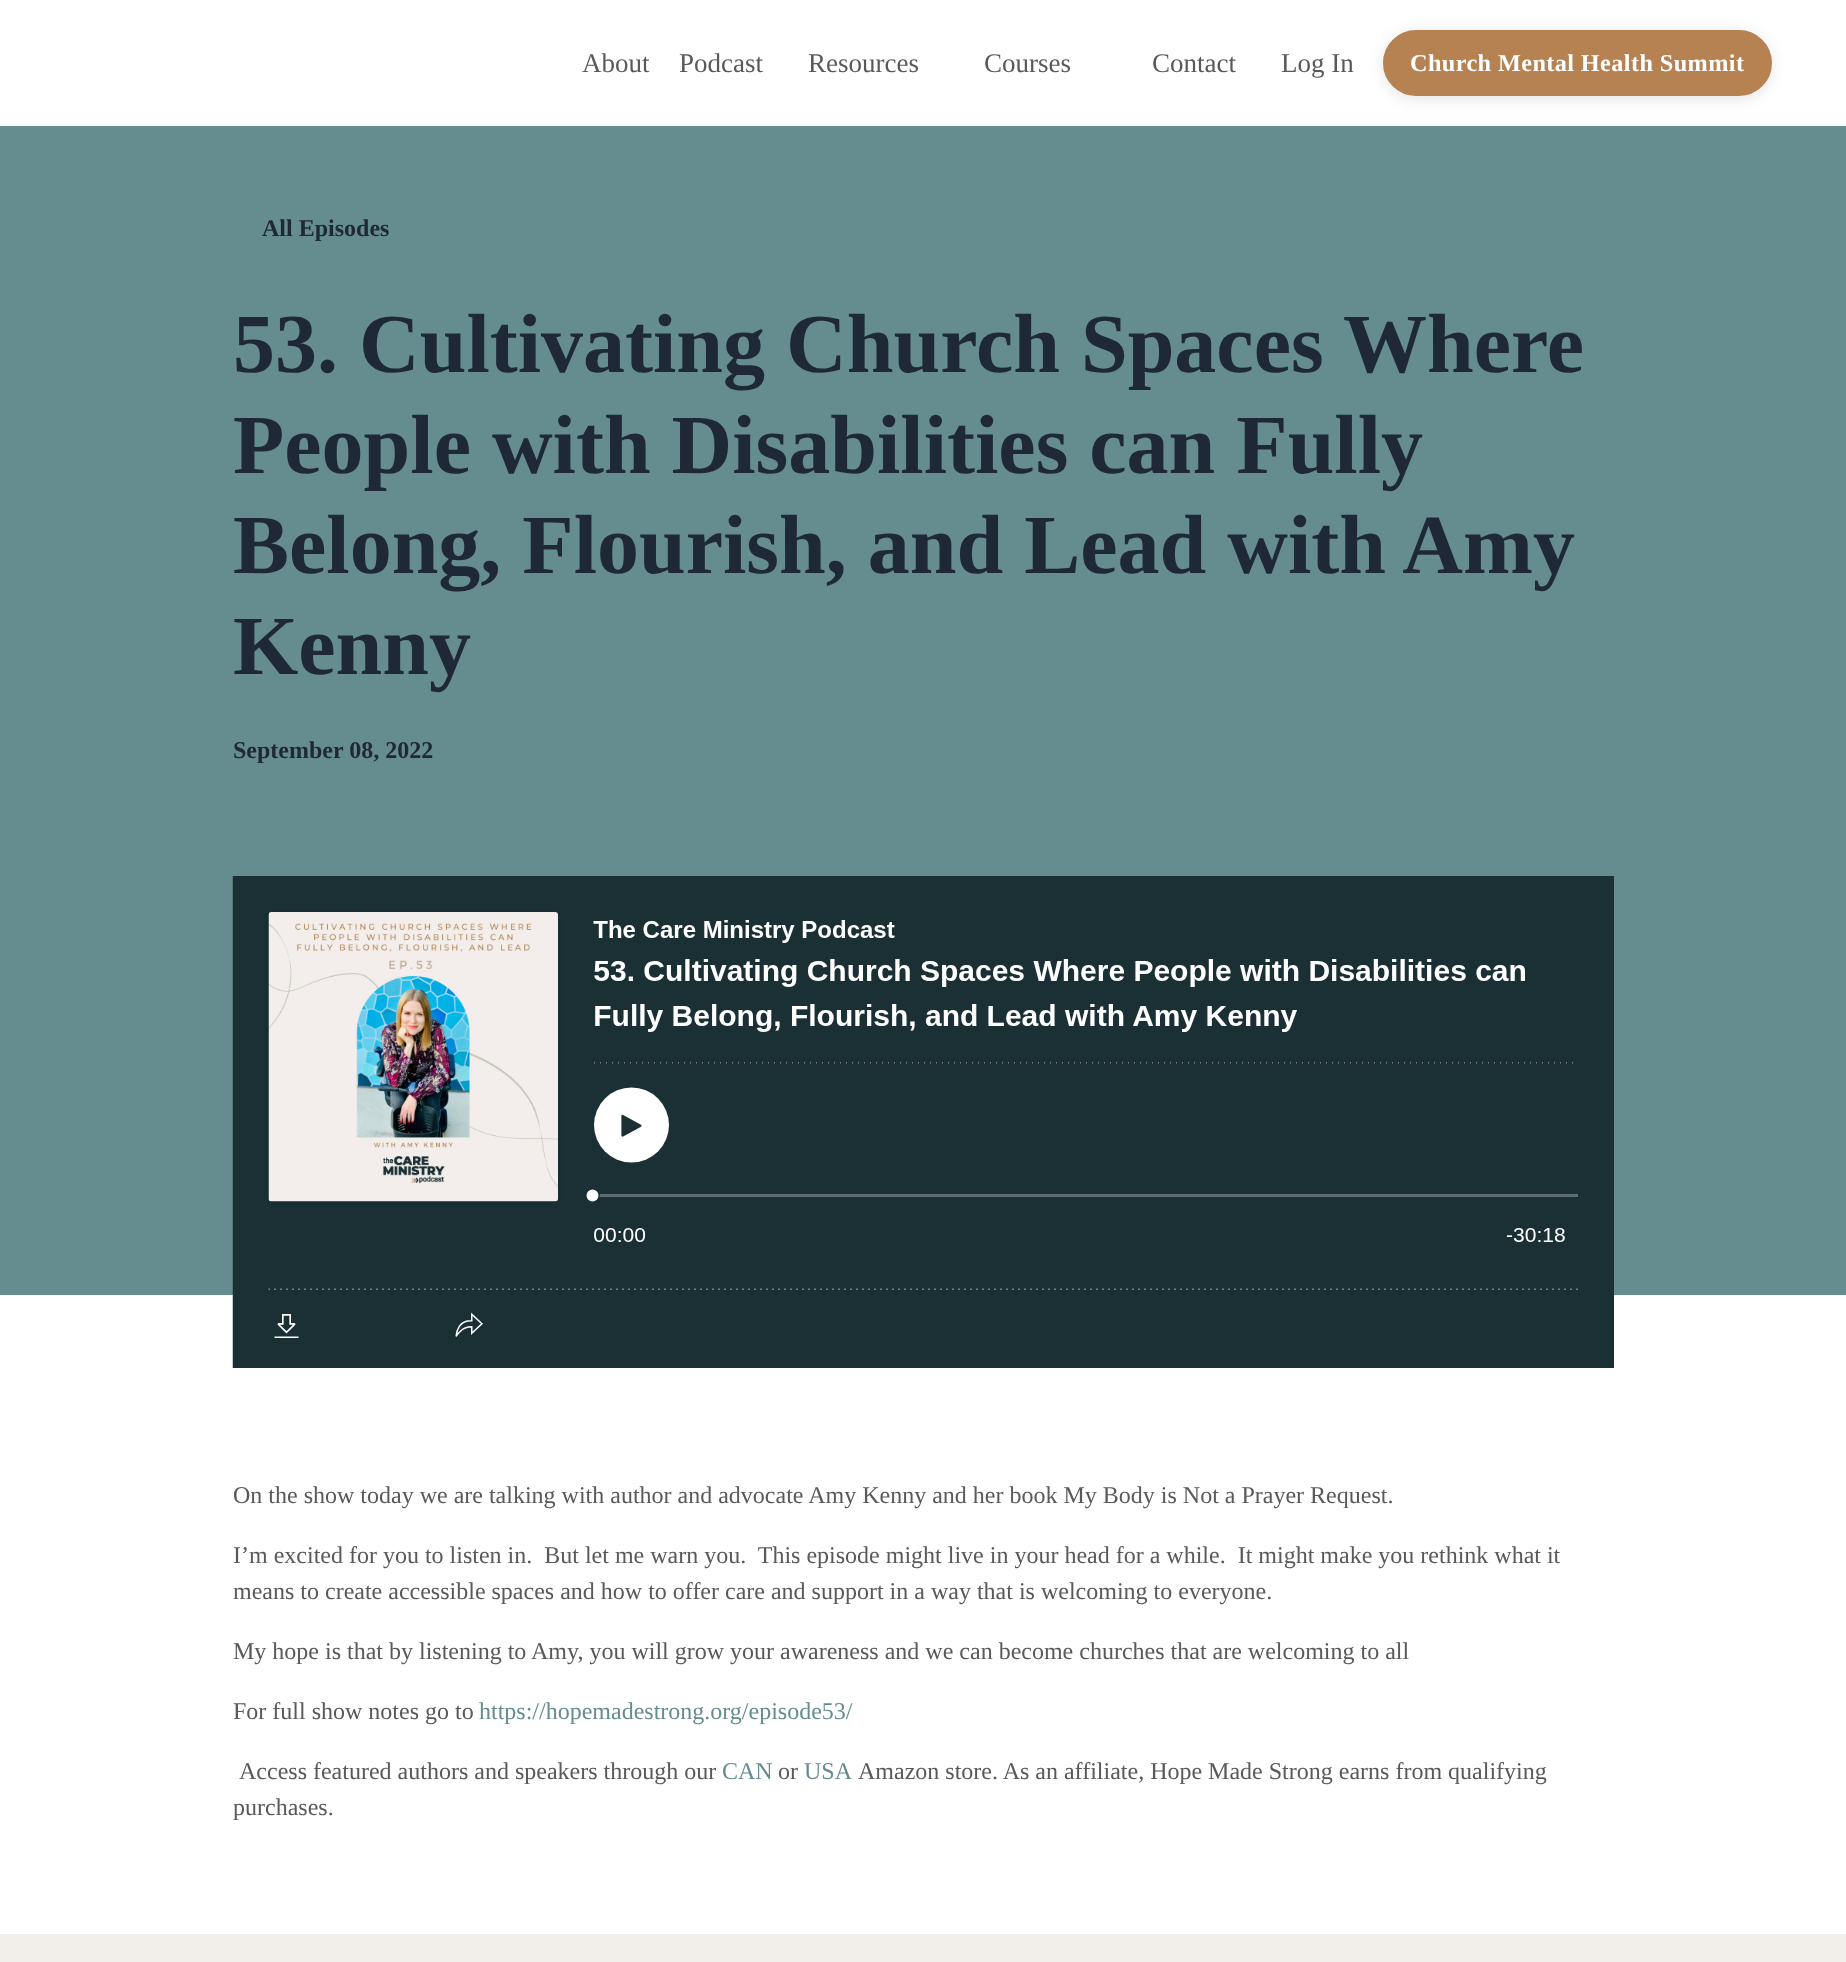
async function draw(canvas) {
	canvas.width = 1846;
	canvas.height = 1962;
	const c = canvas.getContext('2d');
	c.miterLimit = 4;
	c.fontKerning = 'normal';
	async function loadImage(src) {
		const img = new Image();
		img.src = src;
		await img.decode();
		return img;
	}

	c.fillStyle = '#fff';
	c.fillRect(0, 0, 1846, 1962);
	c.font = '27px Liberation Serif';
	c.fillStyle = '#595959';
	for (const [text, x, y] of [
		['About', 582, 72],
		['Podcast', 679, 72],
		['Resources', 808, 72],
		['Courses', 984, 72],
		['Contact', 1152, 72],
		['Log In', 1281, 72],
	]) {
		c.fillText(text, x, y);
	}
	c.fillStyle = '#0000001a';
	c.filter = 'blur(7.5px)';
	c.beginPath();
	c.roundRect(1383, 33, 389, 66, 33);
	c.fill();
	c.filter = 'none';
	c.fillStyle = '#b78252';
	c.beginPath();
	c.roundRect(1384.5, 31.5, 386, 63, 31.5);
	c.fill();
	c.strokeStyle = '#b78252';
	c.lineWidth = 3;
	c.stroke();
	c.letterSpacing = '0.4px';
	c.font = 'bold 24.25px Liberation Serif';
	c.fillStyle = '#fff';
	c.fillText('Church Mental Health Summit', 1410, 71);
	c.fillStyle = '#658c8f';
	c.fillRect(0, 126, 1846, 1169);
	c.letterSpacing = '0px';
	c.font = 'bold 24px Liberation Serif';
	c.fillStyle = '#1f2837';
	c.fillText('All Episodes', 262, 236);
	c.font = 'bold 84px Liberation Serif';
	for (const [text, x, y] of [
		['53. Cultivating Church Spaces Where', 233, 372],
		['People with Disabilities can Fully', 233, 473],
		['Belong, Flourish, and Lead with Amy', 233, 573],
		['Kenny', 233, 674],
	]) {
		c.fillText(text, x, y);
	}
	c.font = 'bold 24px Liberation Serif';
	c.fillText('September 08, 2022', 233, 758);
	c.drawImage(await loadImage('img1.png'), 232, 876, 1382, 492);
	c.font = '24px Liberation Serif';
	c.fillStyle = '#595959';
	for (const [text, x, y] of [
		['On the show today we are talking with author and advocate Amy Kenny and her book My Body is Not a Prayer Request.', 233, 1503],
		['I’m excited for you to listen in.  But let me warn you.  This episode might live in your head for a while.  It might make you rethink what it', 233, 1563],
		['means to create accessible spaces and how to offer care and support in a way that is welcoming to everyone.', 233, 1599],
		['My hope is that by listening to Amy, you will grow your awareness and we can become churches that are welcoming to all', 233, 1659],
		['For full show notes go to', 233, 1719],
	]) {
		c.fillText(text, x, y);
	}
	c.fillStyle = '#658c8f';
	c.fillText('https://hopemadestrong.org/episode53/', 479, 1719);
	c.fillStyle = '#595959';
	c.fillText('Access featured authors and speakers through our', 239, 1779);
	c.fillStyle = '#658c8f';
	c.fillText('CAN', 722, 1779);
	c.fillStyle = '#595959';
	c.fillText('or', 778, 1779);
	c.fillStyle = '#658c8f';
	c.fillText('USA', 804, 1779);
	c.fillStyle = '#595959';
	c.fillText('Amazon store. As an affiliate, Hope Made Strong earns from qualifying', 858, 1779);
	c.fillText('purchases.', 233, 1815);
	c.fillStyle = '#f2efeb';
	c.fillRect(0, 1934, 1846, 28);
}

draw(document.querySelector('canvas'));
